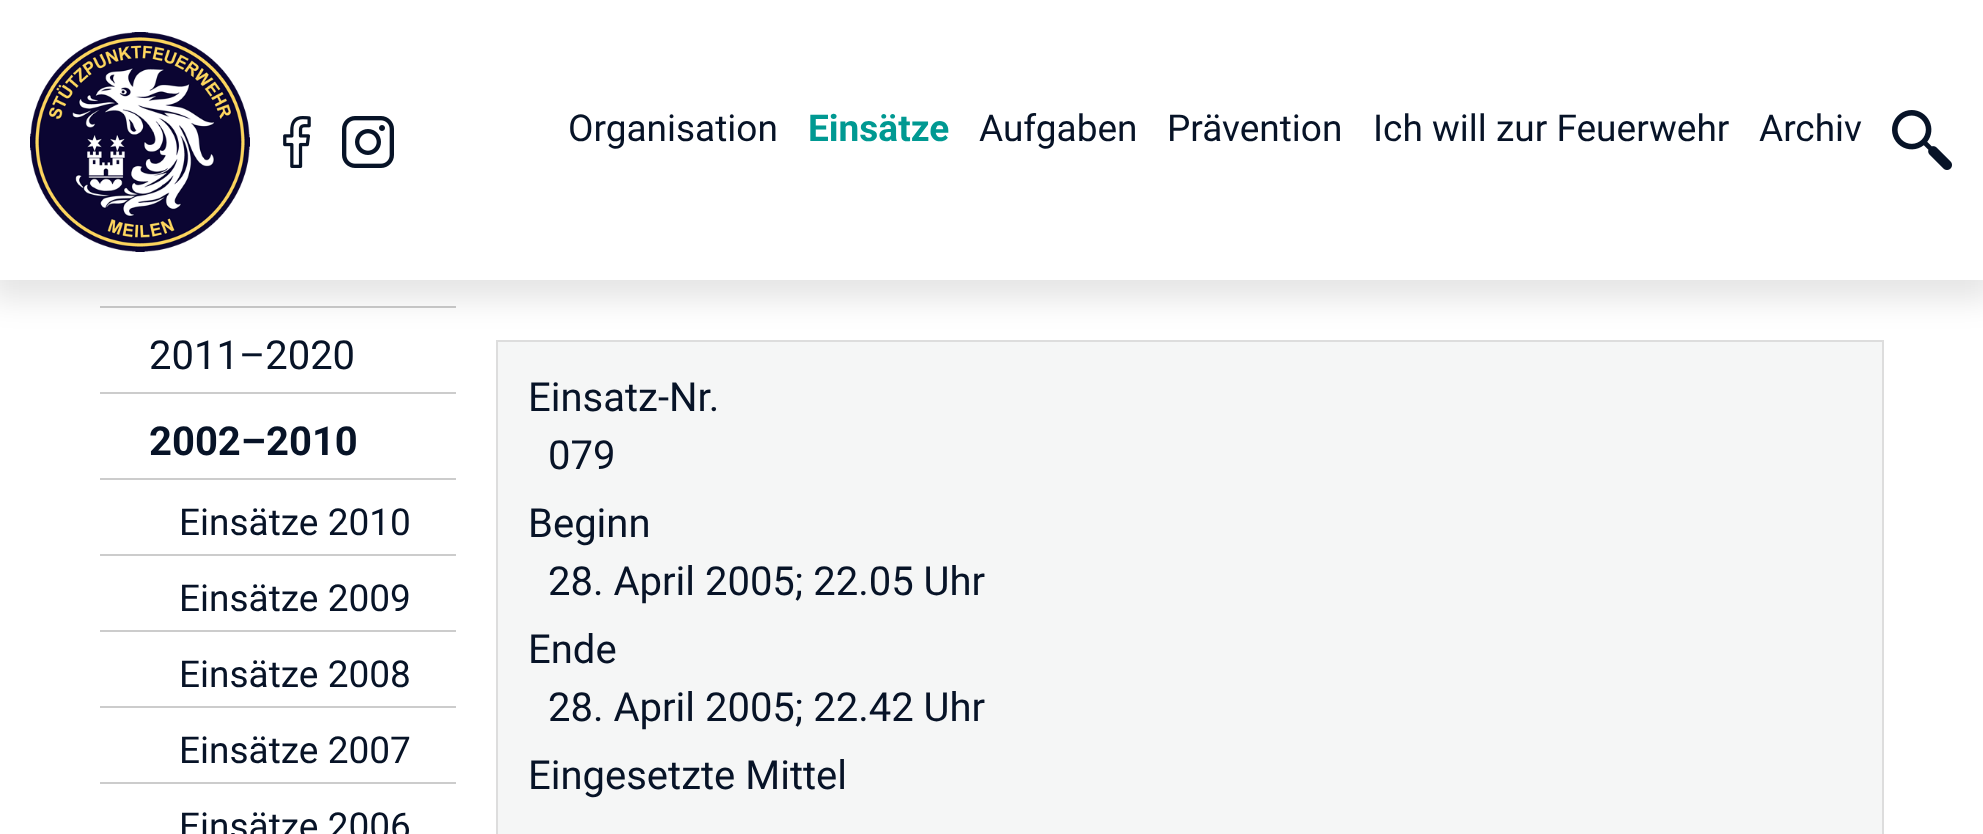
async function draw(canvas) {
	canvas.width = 1983;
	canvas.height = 834;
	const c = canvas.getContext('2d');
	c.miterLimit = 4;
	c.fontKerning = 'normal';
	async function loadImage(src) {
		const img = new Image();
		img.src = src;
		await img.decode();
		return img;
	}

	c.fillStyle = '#fff';
	c.fillRect(0, 0, 1983, 834);
	c.fillStyle = '#ccc';
	c.fillRect(100, 306, 356, 2);
	c.fillStyle = '#f5f6f6';
	c.beginPath();
	c.rect(497, 341, 1386, 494);
	c.fill();
	c.strokeStyle = '#ddd';
	c.lineWidth = 2;
	c.stroke();
	c.fillStyle = '#0000001a';
	c.filter = 'blur(15px)';
	c.beginPath();
	c.rect(-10, 0, 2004, 300);
	c.fill();
	c.filter = 'none';
	c.fillStyle = '#fff';
	c.fillRect(0, 0, 1983, 280);
	c.drawImage(await loadImage('img1.png'), 30, 32, 220, 220);
	c.drawImage(await loadImage('img2.png'), 283, 116, 28, 52);
	c.drawImage(await loadImage('img3.png'), 342, 116, 52, 52);
	c.font = '37px Roboto';
	c.fillStyle = '#071327';
	c.fillText('Organisation', 568, 141);
	c.font = 'bold 37px Roboto';
	c.fillStyle = '#009992';
	c.fillText('Einsätze', 808, 141);
	c.font = '37px Roboto';
	c.fillStyle = '#071327';
	for (const [text, x, y] of [
		['Aufgaben', 979, 141],
		['Prävention', 1167, 141],
		['Ich will zur Feuerwehr', 1373, 141],
		['Archiv', 1759, 141],
	]) {
		c.fillText(text, x, y);
	}
	c.drawImage(await loadImage('img4.png'), 1892, 110, 60, 60);
	c.fillStyle = '#ccc';
	c.fillRect(100, 392, 356, 2);
	c.font = '40px Roboto';
	c.fillStyle = '#071327';
	c.fillText('2011–2020', 149, 369);
	c.font = 'bold 40px Roboto';
	c.fillText('2002–2010', 149, 455);
	c.fillStyle = '#ccc';
	c.fillRect(100, 478, 356, 2);
	c.fillRect(100, 554, 356, 2);
	c.font = '37px Roboto';
	c.fillStyle = '#071327';
	c.fillText('Einsätze 2010', 179, 535);
	c.fillStyle = '#ccc';
	c.fillRect(100, 630, 356, 2);
	c.fillStyle = '#071327';
	c.fillText('Einsätze 2009', 179, 611);
	c.fillStyle = '#ccc';
	c.fillRect(100, 706, 356, 2);
	c.fillStyle = '#071327';
	c.fillText('Einsätze 2008', 179, 687);
	c.fillStyle = '#ccc';
	c.fillRect(100, 782, 356, 2);
	c.fillStyle = '#071327';
	c.fillText('Einsätze 2007', 179, 763);
	c.fillText('Einsätze 2006', 179, 839);
	c.font = '40px Roboto';
	for (const [text, x, y] of [
		['Einsatz-Nr.', 528, 411],
		['079', 548, 469],
		['Beginn', 528, 537],
		['28. April 2005; 22.05 Uhr', 548, 595],
		['Ende', 528, 663],
		['28. April 2005; 22.42 Uhr', 548, 721],
		['Eingesetzte Mittel', 528, 789],
	]) {
		c.fillText(text, x, y);
	}
}

draw(document.querySelector('canvas'));
